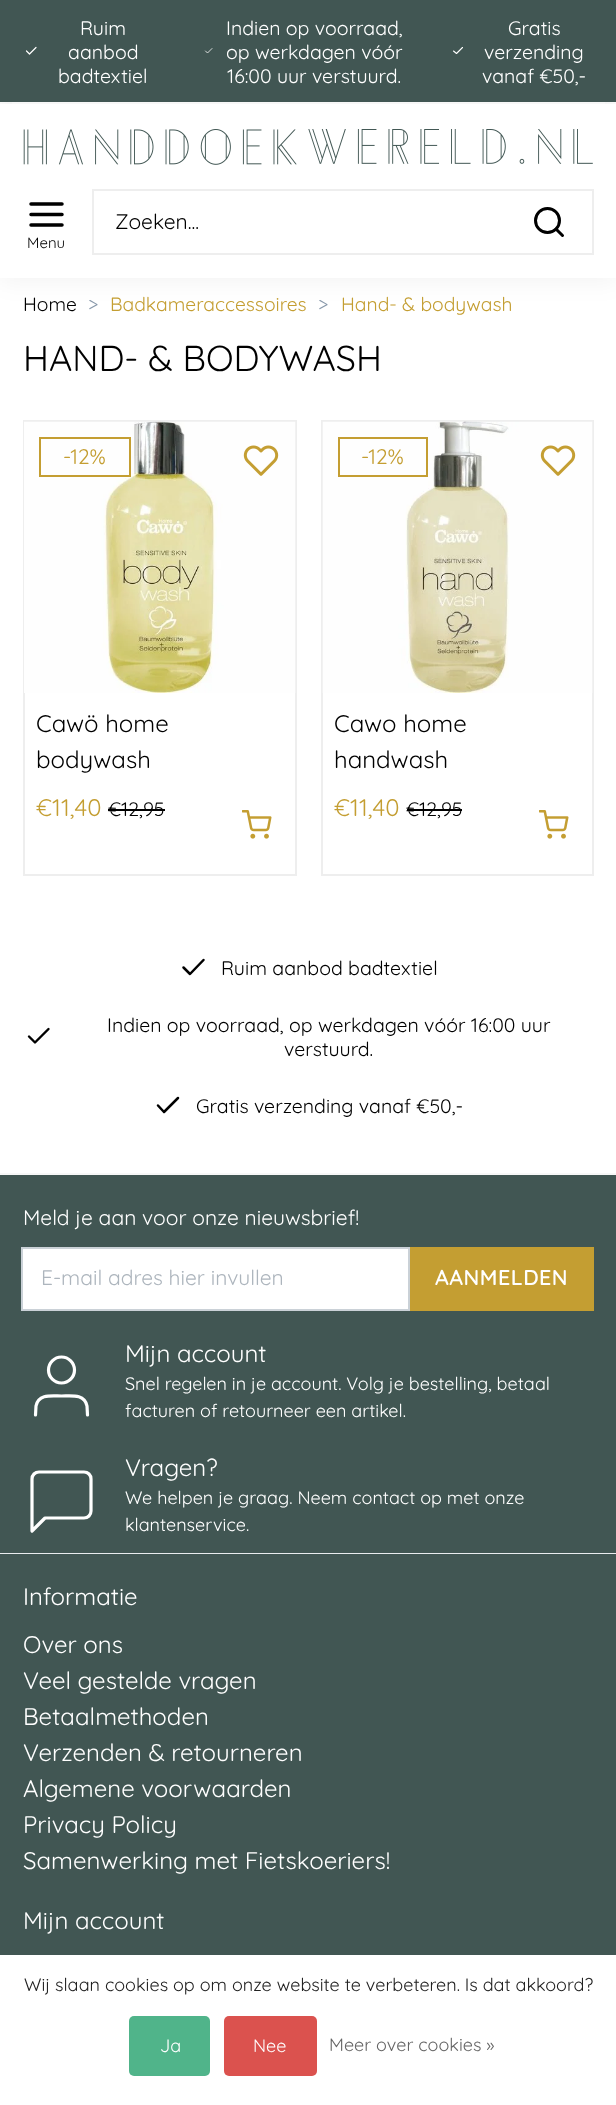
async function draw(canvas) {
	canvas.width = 616;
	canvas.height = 2105;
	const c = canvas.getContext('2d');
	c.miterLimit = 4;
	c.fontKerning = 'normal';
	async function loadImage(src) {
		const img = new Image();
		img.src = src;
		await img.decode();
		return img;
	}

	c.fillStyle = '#fff';
	c.fillRect(0, 0, 616, 2105);
	c.fillStyle = '#0000000d';
	c.filter = 'blur(12px)';
	c.beginPath();
	c.rect(0, 3, 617, 278);
	c.fill();
	c.filter = 'none';
	c.fillStyle = '#415653';
	c.fillRect(0, 0, 616, 102);
	c.fillStyle = '#f7f7f7';
	c.fillRect(12, 102, 593, 2);
	c.beginPath();
	c.moveTo(36, 47.5);
	c.lineTo(29.5, 54);
	c.lineTo(26.5, 51);
	c.strokeStyle = '#fff';
	c.lineWidth = 1.2;
	c.lineCap = 'round';
	c.lineJoin = 'round';
	c.stroke();
	c.font = '19.5px Quicksand';
	c.fillStyle = '#fff';
	for (const [text, x, y] of [
		['Ruim', 80, 35],
		['aanbod', 68, 59],
		['badtextiel', 58, 83],
	]) {
		c.fillText(text, x, y);
	}
	c.beginPath();
	c.moveTo(212, 48.5);
	c.lineTo(207.5, 53);
	c.lineTo(205.5, 51);
	c.lineWidth = 0.8;
	c.stroke();
	for (const [text, x, y] of [
		['Indien op voorraad,', 226, 35],
		['op werkdagen vóór', 226, 59],
		['16:00 uur verstuurd.', 227, 83],
	]) {
		c.fillText(text, x, y);
	}
	c.beginPath();
	c.moveTo(462.5, 47.5);
	c.lineTo(456.5, 53.5);
	c.lineTo(453.5, 51);
	c.lineWidth = 1.1;
	c.stroke();
	for (const [text, x, y] of [
		['Gratis', 508, 35],
		['verzending', 484, 59],
		['vanaf €50,-', 482, 83],
	]) {
		c.fillText(text, x, y);
	}
	c.fillRect(0, 104, 616, 174);
	c.drawImage(await loadImage('img1.png'), 23, 129, 570, 36);
	c.strokeStyle = '#eee';
	c.lineWidth = 2;
	c.lineJoin = 'miter';
	c.strokeRect(93, 190, 500, 64);
	c.font = '21px Quicksand';
	c.fillStyle = '#000';
	c.fillText('Zoeken...', 115, 229);
	c.beginPath();
	c.arc(547.5, 220.5, 12, 0, 2 * Math.PI);
	c.strokeStyle = '#000';
	c.lineWidth = 3;
	c.stroke();
	c.beginPath();
	c.moveTo(562.5, 235.5);
	c.lineTo(556, 229);
	c.lineJoin = 'round';
	c.stroke();
	c.beginPath();
	c.moveTo(31, 214.5);
	c.lineTo(62, 214.5);
	c.moveTo(31, 204);
	c.lineTo(62, 204);
	c.moveTo(31, 225);
	c.lineTo(62, 225);
	c.lineWidth = 3.5;
	c.stroke();
	c.font = '15px Quicksand';
	c.fillText('Menu', 27, 248);
	c.font = '19.25px Quicksand';
	c.fillText('Home', 23, 311);
	c.fillStyle = '#8898aa';
	c.fillText('>', 88, 311);
	c.fillStyle = '#c49e32';
	c.fillText('Badkameraccessoires', 110, 311);
	c.fillStyle = '#8898aa';
	c.fillText('>', 318, 311);
	c.fillStyle = '#c49e32';
	c.fillText('Hand- & bodywash', 341, 311);
	c.font = '36px Quicksand';
	c.fillStyle = '#000';
	c.fillText('HAND- & BODYWASH', 23, 371);
	c.strokeStyle = '#eee';
	c.lineWidth = 2;
	c.lineJoin = 'miter';
	c.strokeRect(24, 421, 272, 454);
	c.drawImage(await loadImage('img2.png'), 24, 421, 272, 272);
	c.strokeStyle = '#c49e32';
	c.strokeRect(40, 438, 90, 38);
	c.font = '21px Quicksand';
	c.fillStyle = '#c49e32';
	c.fillText('-12%', 63, 464);
	c.drawImage(await loadImage('img3.png'), 243, 445, 36, 31);
	c.font = '24px Quicksand';
	c.fillStyle = '#000';
	c.fillText('Cawö home', 36, 732);
	c.fillText('bodywash', 36, 768);
	c.fillStyle = '#c49e32';
	c.fillText('€11,40', 36, 816);
	c.font = '19.5px Quicksand';
	c.fillStyle = '#000';
	c.fillText('€12,95', 108, 816);
	c.fillRect(108, 809, 57, 2);
	c.drawImage(await loadImage('img4.png'), 242, 810, 30, 29);
	c.strokeStyle = '#eee';
	c.strokeRect(322, 421, 271, 454);
	c.drawImage(await loadImage('img5.png'), 322, 421, 271, 272);
	c.strokeStyle = '#c49e32';
	c.strokeRect(339, 438, 88, 38);
	c.font = '21px Quicksand';
	c.fillStyle = '#c49e32';
	c.fillText('-12%', 361, 464);
	c.drawImage(await loadImage('img3.png'), 540, 445, 36, 31);
	c.font = '24px Quicksand';
	c.fillStyle = '#000';
	c.fillText('Cawo home', 334, 732);
	c.fillText('handwash', 334, 768);
	c.fillStyle = '#c49e32';
	c.fillText('€11,40', 334, 816);
	c.font = '19.5px Quicksand';
	c.fillStyle = '#000';
	c.fillText('€12,95', 406, 816);
	c.fillRect(407, 809, 55, 2);
	c.drawImage(await loadImage('img4.png'), 539, 810, 30, 29);
	c.fillStyle = '#f7f7f7';
	c.fillRect(0, 1173, 616, 2);
	c.beginPath();
	c.moveTo(203.5, 960);
	c.lineTo(190, 974);
	c.lineTo(183.5, 967.5);
	c.strokeStyle = '#000';
	c.lineWidth = 2.5;
	c.lineJoin = 'round';
	c.stroke();
	c.fillStyle = '#000';
	c.fillText('Ruim aanbod badtextiel', 221, 975);
	c.beginPath();
	c.moveTo(48.5, 1029);
	c.lineTo(35, 1042.5);
	c.lineTo(29, 1036.5);
	c.lineWidth = 2.4;
	c.stroke();
	c.fillText('Indien op voorraad, op werkdagen vóór 16:00 uur', 107, 1032);
	c.fillText('verstuurd.', 284, 1056);
	c.beginPath();
	c.moveTo(178, 1098);
	c.lineTo(164, 1112);
	c.lineTo(158, 1105.5);
	c.lineWidth = 2.5;
	c.stroke();
	c.fillText('Gratis verzending vanaf €50,-', 196, 1113);
	c.fillStyle = '#415653';
	c.fillRect(0, 1175, 616, 378);
	c.fillStyle = '#e9ecef';
	c.fillRect(0, 1553, 616, 1);
	c.font = '21px Quicksand';
	c.fillStyle = '#fff';
	c.fillText('Meld je aan voor onze nieuwsbrief!', 23, 1225);
	c.beginPath();
	c.rect(22, 1248, 387, 62);
	c.fill();
	c.strokeStyle = '#cad1d7';
	c.lineWidth = 2;
	c.lineJoin = 'miter';
	c.stroke();
	c.fillStyle = '#adb5bd';
	c.fillText('E-mail adres hier invullen', 41, 1285);
	c.fillStyle = '#c49e32';
	c.fillRect(410, 1247, 184, 64);
	c.letterSpacing = '0.5px';
	c.font = '600 21.5px Quicksand';
	c.fillStyle = '#fff';
	c.fillText('AANMELDEN', 435, 1285);
	c.beginPath();
	c.arc(61.5, 1370, 13, 0, 2 * Math.PI);
	c.strokeStyle = '#fff';
	c.lineWidth = 3.2;
	c.stroke();
	c.beginPath();
	c.moveTo(87.5, 1415);
	c.lineTo(87, 1406);
	c.bezierCurveTo(84.5, 1393.5, 71, 1396, 61.5, 1396);
	c.bezierCurveTo(52, 1396, 38.5, 1393.5, 36, 1406);
	c.lineTo(35.5, 1415);
	c.lineJoin = 'round';
	c.stroke();
	c.letterSpacing = '0px';
	c.font = '24px Quicksand';
	c.fillText('Mijn account', 125, 1362);
	c.font = '18px Quicksand';
	c.fillText('Snel regelen in je account. Volg je bestelling, betaal', 125, 1390);
	c.fillText('facturen of retourneer een artikel.', 125, 1417);
	c.beginPath();
	c.moveTo(91, 1511);
	c.bezierCurveTo(91, 1515, 88, 1518, 84, 1518);
	c.lineTo(45, 1518);
	c.lineTo(32, 1531);
	c.lineTo(32, 1479);
	c.bezierCurveTo(32, 1475, 35, 1472, 39, 1472);
	c.lineTo(84, 1472);
	c.bezierCurveTo(88, 1472, 91, 1475, 91, 1479);
	c.closePath();
	c.stroke();
	c.font = '24px Quicksand';
	c.fillText('Vragen?', 125, 1476);
	c.font = '18px Quicksand';
	c.fillText('We helpen je graag. Neem contact op met onze', 125, 1504);
	c.fillText('klantenservice.', 125, 1531);
	c.fillStyle = '#415653';
	c.fillRect(0, 1554, 616, 401);
	c.font = '24px Quicksand';
	c.fillStyle = '#fff';
	for (const [text, x, y] of [
		['Informatie', 23, 1605],
		['Over ons', 23, 1653],
		['Veel gestelde vragen', 23, 1689],
		['Betaalmethoden', 23, 1725],
		['Verzenden & retourneren', 23, 1761],
		['Algemene voorwaarden', 23, 1797],
		['Privacy Policy', 23, 1833],
		['Samenwerking met Fietskoeriers!', 23, 1869],
		['Mijn account', 23, 1929],
	]) {
		c.fillText(text, x, y);
	}
	c.font = '18px Quicksand';
	c.fillStyle = '#222';
	c.fillText('Wij slaan cookies op om onze website te verbeteren. Is dat akkoord?', 24, 1991);
	c.fillStyle = '#50b48a';
	c.beginPath();
	c.roundRect(129, 2016, 81, 60, 5);
	c.fill();
	c.fillStyle = '#fff';
	c.fillText('Ja', 160, 2052);
	c.fillStyle = '#db524e';
	c.beginPath();
	c.roundRect(224, 2016, 93, 60, 5);
	c.fill();
	c.fillStyle = '#fff';
	c.fillText('Nee', 253, 2052);
	c.fillStyle = '#666';
	c.fillText('Meer over cookies »', 329, 2051);
}

draw(document.querySelector('canvas'));
